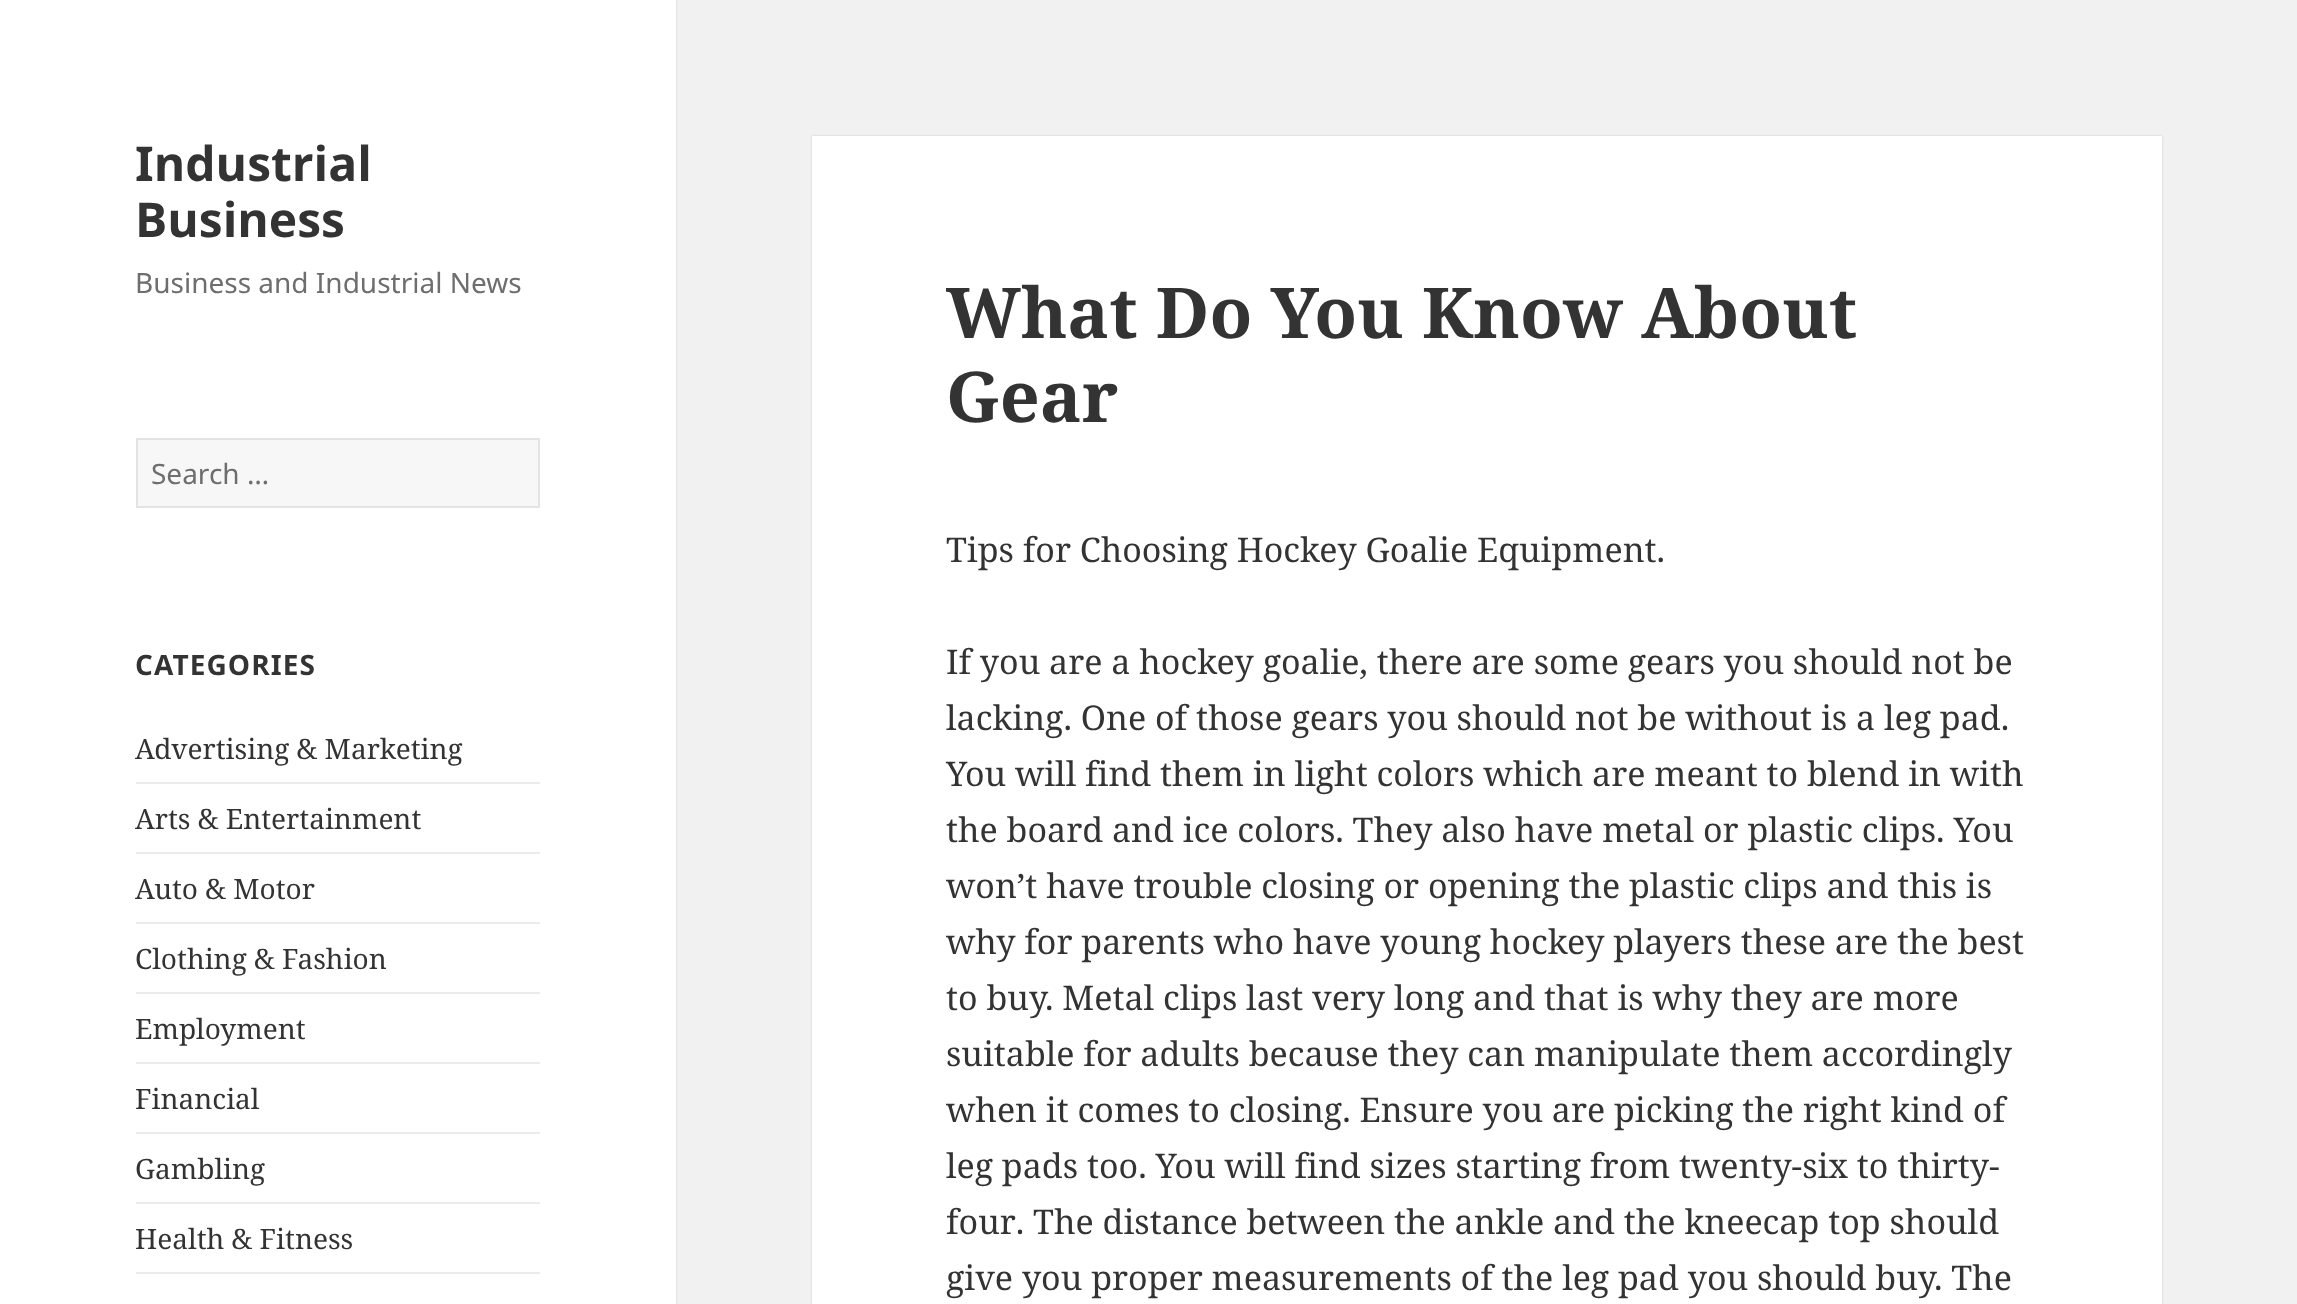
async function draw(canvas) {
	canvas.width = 2297;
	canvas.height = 1304;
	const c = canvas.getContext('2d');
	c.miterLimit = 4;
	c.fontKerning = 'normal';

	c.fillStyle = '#f1f1f1';
	c.fillRect(0, 0, 2297, 1304);
	c.fillStyle = '#00000026';
	c.filter = 'blur(1px)';
	c.beginPath();
	c.rect(0, 0, 676, 1304);
	c.fill();
	c.filter = 'none';
	c.fillStyle = '#fff';
	c.fillRect(0, 0, 676, 1304);
	c.font = 'bold 48px Noto Sans';
	c.fillStyle = '#333';
	c.fillText('Industrial', 135, 181);
	c.fillText('Business', 135, 237);
	c.font = '28px Noto Sans';
	c.fillStyle = '#6e6e6e';
	c.fillText('Business and Industrial News', 135, 293);
	c.fillStyle = '#f7f7f7';
	c.beginPath();
	c.rect(137, 439, 402, 68);
	c.fill();
	c.strokeStyle = '#e3e3e3';
	c.lineWidth = 2;
	c.stroke();
	c.fillStyle = '#6e6e6e';
	c.fillText('Search …', 151, 484);
	c.letterSpacing = '1.1px';
	c.font = 'bold 28px Noto Sans';
	c.fillStyle = '#333';
	c.fillText('CATEGORIES', 135, 675);
	c.letterSpacing = '0px';
	c.font = '28px Noto Serif';
	c.fillText('Advertising & Marketing', 135, 759);
	c.fillStyle = '#ebebeb';
	c.fillRect(136, 782, 404, 2);
	c.fillStyle = '#333';
	c.fillText('Arts & Entertainment', 135, 829);
	c.fillStyle = '#ebebeb';
	c.fillRect(136, 852, 404, 2);
	c.fillStyle = '#333';
	c.fillText('Auto & Motor', 135, 899);
	c.fillStyle = '#ebebeb';
	c.fillRect(136, 922, 404, 2);
	c.fillStyle = '#333';
	c.fillText('Clothing & Fashion', 135, 969);
	c.fillStyle = '#ebebeb';
	c.fillRect(136, 992, 404, 2);
	c.fillStyle = '#333';
	c.fillText('Employment', 135, 1039);
	c.fillStyle = '#ebebeb';
	c.fillRect(136, 1062, 404, 2);
	c.fillStyle = '#333';
	c.fillText('Financial', 135, 1109);
	c.fillStyle = '#ebebeb';
	c.fillRect(136, 1132, 404, 2);
	c.fillStyle = '#333';
	c.fillText('Gambling', 135, 1179);
	c.fillStyle = '#ebebeb';
	c.fillRect(136, 1202, 404, 2);
	c.fillStyle = '#333';
	c.fillText('Health & Fitness', 135, 1249);
	c.fillStyle = '#ebebeb';
	c.fillRect(136, 1272, 404, 2);
	c.fillStyle = '#00000026';
	c.filter = 'blur(1px)';
	c.beginPath();
	c.rect(812, 136, 1350, 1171);
	c.fill();
	c.filter = 'none';
	c.fillStyle = '#fff';
	c.fillRect(812, 136, 1350, 1168);
	c.font = 'bold 70px Noto Serif';
	c.fillStyle = '#333';
	c.fillText('What Do You Know About', 946, 338);
	c.fillText('Gear', 946, 422);
	c.font = '34px Noto Serif';
	for (const [text, x, y] of [
		['Tips for Choosing Hockey Goalie Equipment.', 946, 562],
		['If you are a hockey goalie, there are some gears you should not be', 946, 674],
		['lacking. One of those gears you should not be without is a leg pad.', 946, 730],
		['You will find them in light colors which are meant to blend in with', 946, 786],
		['the board and ice colors. They also have metal or plastic clips. You', 946, 842],
		['won’t have trouble closing or opening the plastic clips and this is', 946, 898],
		['why for parents who have young hockey players these are the best', 946, 954],
		['to buy. Metal clips last very long and that is why they are more', 946, 1010],
		['suitable for adults because they can manipulate them accordingly', 946, 1066],
		['when it comes to closing. Ensure you are picking the right kind of', 946, 1122],
		['leg pads too. You will find sizes starting from twenty-six to thirty-', 946, 1178],
		['four. The distance between the ankle and the kneecap top should', 946, 1234],
		['give you proper measurements of the leg pad you should buy. The', 946, 1290],
	]) {
		c.fillText(text, x, y);
	}
}

draw(document.querySelector('canvas'));
